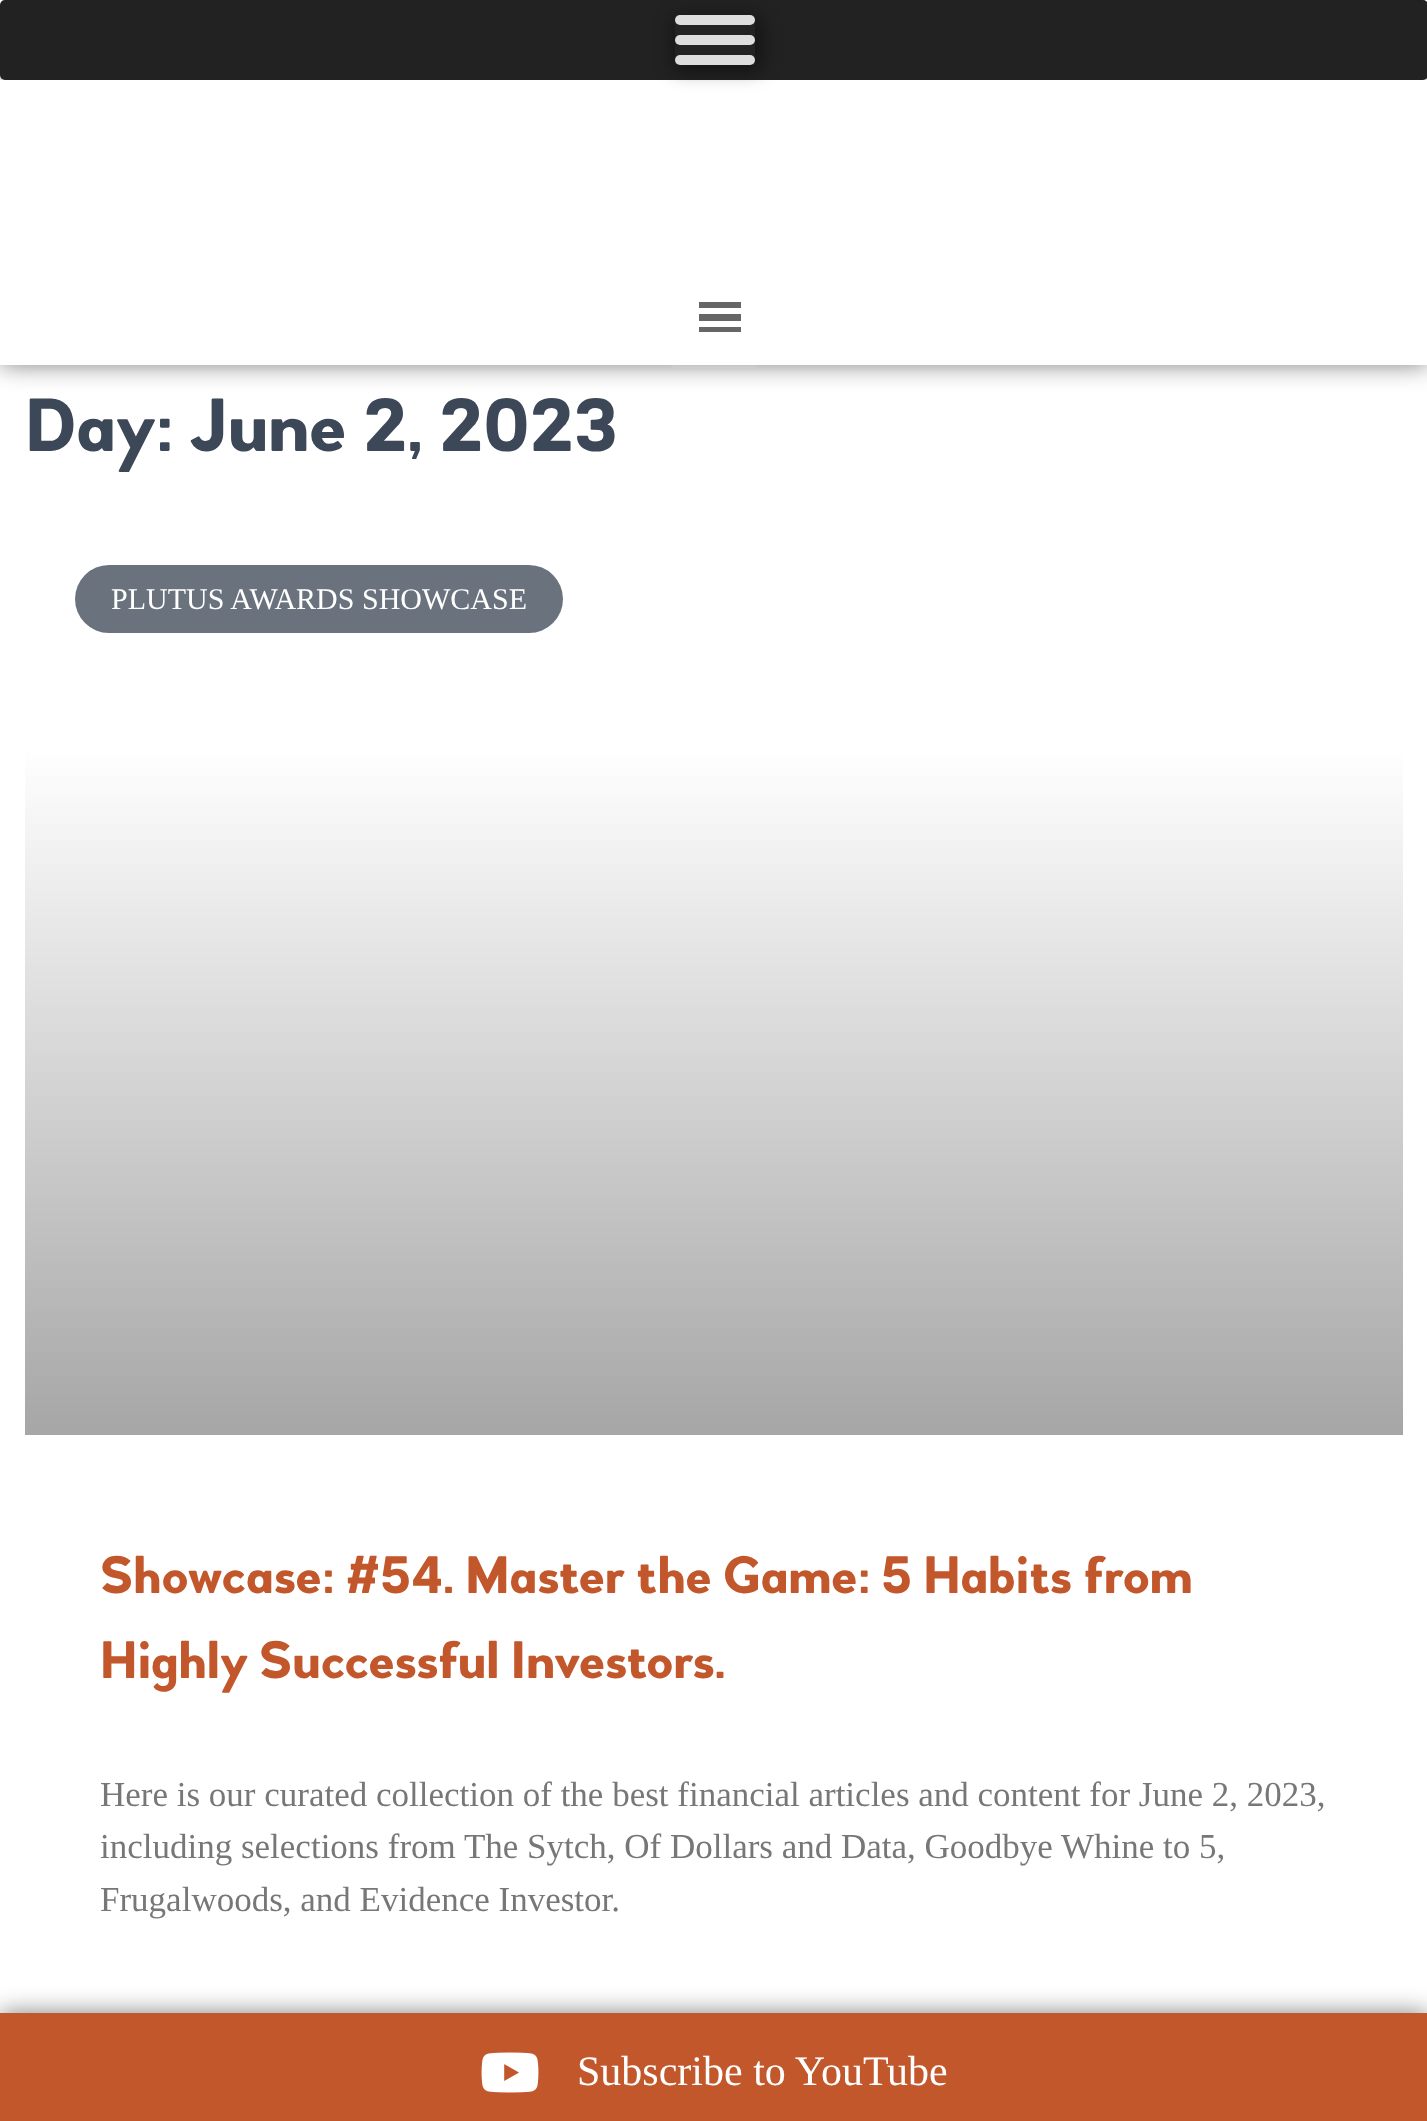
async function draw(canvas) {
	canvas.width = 1427;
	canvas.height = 2121;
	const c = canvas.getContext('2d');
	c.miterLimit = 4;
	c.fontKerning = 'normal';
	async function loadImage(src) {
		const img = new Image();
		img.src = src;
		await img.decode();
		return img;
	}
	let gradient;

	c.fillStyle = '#fff';
	c.fillRect(0, 0, 1427, 2121);
	c.save();
	c.beginPath();
	c.moveTo(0, 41);
	c.lineTo(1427, 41);
	c.lineTo(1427, 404);
	c.lineTo(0, 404);
	c.closePath();
	c.moveTo(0, 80);
	c.lineTo(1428, 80);
	c.lineTo(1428, 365);
	c.lineTo(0, 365);
	c.closePath();
	c.clip('evenodd');
	c.fillStyle = '#00000080';
	c.filter = 'blur(12.5px)';
	c.beginPath();
	c.rect(0, 80, 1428, 285);
	c.fill();
	c.filter = 'none';
	c.restore();
	c.fillStyle = '#222';
	c.beginPath();
	c.roundRect(0, 0, 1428, 80, 5);
	c.fill();
	c.save();
	c.beginPath();
	c.moveTo(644, 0);
	c.lineTo(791, 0);
	c.lineTo(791, 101);
	c.lineTo(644, 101);
	c.closePath();
	c.moveTo(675, 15);
	c.lineTo(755, 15);
	c.lineTo(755, 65);
	c.lineTo(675, 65);
	c.closePath();
	c.clip('evenodd');
	c.fillStyle = '#00000080';
	c.filter = 'blur(10px)';
	c.beginPath();
	c.rect(675, 18, 85, 52);
	c.fill();
	c.filter = 'none';
	c.restore();
	c.fillStyle = '#ddd';
	c.beginPath();
	c.roundRect(675, 15, 80, 10, 5);
	c.fill();
	c.beginPath();
	c.roundRect(675, 35, 80, 10, 5);
	c.fill();
	c.beginPath();
	c.roundRect(675, 55, 80, 10, 5);
	c.fill();
	c.fillStyle = '#ffffff1a';
	c.beginPath();
	c.roundRect(670, 268, 88, 100, 5);
	c.fill();
	c.fillStyle = '#666';
	c.beginPath();
	c.moveTo(699, 332);
	c.lineTo(741, 332);
	c.lineTo(741, 327);
	c.lineTo(699, 327);
	c.closePath();
	c.moveTo(699, 302);
	c.lineTo(699, 308);
	c.lineTo(741, 308);
	c.lineTo(741, 302);
	c.closePath();
	c.moveTo(699, 321);
	c.lineTo(741, 321);
	c.lineTo(741, 314);
	c.lineTo(699, 314);
	c.closePath();
	c.fill();
	c.font = 'bold 75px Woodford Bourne';
	c.fillStyle = '#3c4858';
	c.fillText('Day: June 2, 2023', 25, 451);
	gradient = c.createLinearGradient(714, 1435, 714, 515);
	gradient.addColorStop(0, '#a6a6a6');
	gradient.addColorStop(0.75, '#fff');
	c.fillStyle = gradient;
	c.beginPath();
	c.roundRect(25, 515, 1378, 920, [8, 8, 0, 0]);
	c.fill();
	c.fillStyle = '#69727d';
	c.beginPath();
	c.roundRect(75, 565, 488, 68, 34);
	c.fill();
	c.font = '30px Liberation Serif';
	c.fillStyle = '#fff';
	c.fillText('PLUTUS AWARDS SHOWCASE', 111, 609);
	c.font = 'bold 52.5px Woodford Bourne';
	c.fillStyle = '#c3572c';
	c.fillText('Showcase: #54. Master the Game: 5 Habits from', 100, 1593);
	c.fillText('Highly Successful Investors.', 100, 1678);
	c.font = '35px Liberation Serif';
	c.fillStyle = '#777';
	for (const [text, x, y] of [
		['Here is our curated collection of the best financial articles and content for June 2, 2023,', 100, 1806],
		['including selections from The Sytch, Of Dollars and Data, Goodbye Whine to 5,', 100, 1858],
		['Frugalwoods, and Evidence Investor.', 100, 1911],
	]) {
		c.fillText(text, x, y);
	}
	c.fillStyle = '#00000080';
	c.filter = 'blur(12.5px)';
	c.beginPath();
	c.rect(0, 2013, 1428, 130);
	c.fill();
	c.filter = 'none';
	c.fillStyle = '#c3572c';
	c.fillRect(0, 2013, 1427, 108);
	c.drawImage(await loadImage('img1.png'), 481, 2052, 58, 41);
	c.font = '42px Liberation Serif';
	c.fillStyle = '#fff';
	c.fillText('Subscribe to YouTube', 577, 2085);
}

draw(document.querySelector('canvas'));
